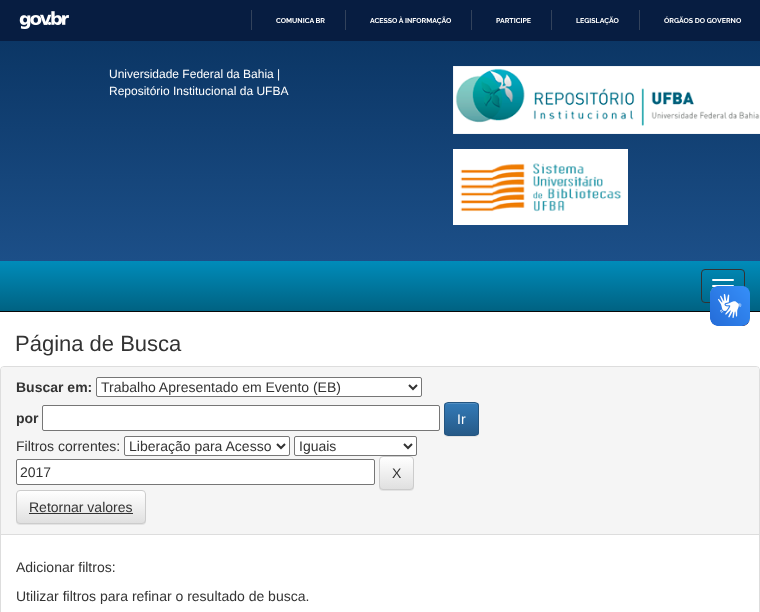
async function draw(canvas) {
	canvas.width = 760;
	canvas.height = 612;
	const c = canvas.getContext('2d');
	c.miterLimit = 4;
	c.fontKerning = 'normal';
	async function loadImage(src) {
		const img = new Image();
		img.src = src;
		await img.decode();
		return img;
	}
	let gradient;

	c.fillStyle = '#fff';
	c.fillRect(0, 0, 760, 612);
	c.fillStyle = '#071d41';
	c.fillRect(0, 0, 760, 41);
	c.drawImage(await loadImage('img1.png'), 19, 11, 50, 18);
	c.fillStyle = '#32425b';
	c.fillRect(251, 10, 1, 20);
	c.font = 'bold 7px Raleway';
	c.fillStyle = '#fff';
	c.fillText('COMUNICA BR', 276, 23);
	c.fillStyle = '#32425b';
	c.fillRect(345, 10, 1, 20);
	c.fillStyle = '#fff';
	c.fillText('ACESSO À INFORMAÇÃO', 370, 23);
	c.fillStyle = '#32425b';
	c.fillRect(471, 10, 1, 20);
	c.fillStyle = '#fff';
	c.fillText('PARTICIPE', 496, 23);
	c.fillStyle = '#32425b';
	c.fillRect(551, 10, 1, 20);
	c.fillStyle = '#fff';
	c.fillText('LEGISLAÇÃO', 576, 23);
	c.fillStyle = '#32425b';
	c.fillRect(639, 10, 1, 20);
	c.fillStyle = '#fff';
	c.fillText('ÓRGÃOS DO GOVERNO', 664, 23);
	gradient = c.createLinearGradient(380, 41, 380, 261);
	gradient.addColorStop(0, '#0b3665');
	gradient.addColorStop(1, '#1c4f88');
	c.fillStyle = gradient;
	c.fillRect(0, 41, 760, 220);
	c.font = '12px Liberation Sans';
	c.fillStyle = '#fff';
	c.fillText('Universidade Federal da Bahia |', 109, 78);
	c.fillText('Repositório Institucional da UFBA', 109, 95);
	c.drawImage(await loadImage('img2.png'), 453, 66, 307, 68);
	c.drawImage(await loadImage('img3.png'), 453, 149, 175, 76);
	gradient = c.createLinearGradient(380, 261, 380, 311);
	gradient.addColorStop(0, '#008cba');
	gradient.addColorStop(1, '#006282');
	c.fillStyle = gradient;
	c.fillRect(0, 261, 760, 50);
	c.fillStyle = '#080808';
	c.fillRect(0, 311, 760, 1);
	c.beginPath();
	c.roundRect(701.5, 269.5, 43, 33, 3.5);
	c.strokeStyle = '#333';
	c.stroke();
	c.fillStyle = '#fff';
	c.beginPath();
	c.roundRect(712, 279, 22, 2, 1);
	c.fill();
	c.beginPath();
	c.roundRect(712, 285, 22, 2, 1);
	c.fill();
	c.drawImage(await loadImage('img4.png'), 710, 286, 40, 40);
	c.drawImage(await loadImage('img5.png'), 710, 286, 40, 40);
	c.font = '22px Liberation Sans';
	c.fillStyle = '#333';
	c.fillText('Página de Busca', 15, 351);
	c.beginPath();
	c.roundRect(0.5, 366.5, 759, 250, 3.5);
	c.strokeStyle = '#ddd';
	c.stroke();
	c.fillStyle = '#f5f5f5';
	c.beginPath();
	c.roundRect(1, 367, 758, 168, [3, 3, 0, 0]);
	c.fill();
	c.fillStyle = '#ddd';
	c.fillRect(1, 534, 758, 1);
	c.font = 'bold 14px Liberation Sans';
	c.fillStyle = '#333';
	c.fillText('Buscar em:', 16, 392);
	c.fillStyle = '#fff';
	c.beginPath();
	c.roundRect(96.5, 377.5, 325, 19, 1.5);
	c.fill();
	c.strokeStyle = '#767676';
	c.stroke();
	c.beginPath();
	c.moveTo(409, 385);
	c.lineTo(413, 389);
	c.lineTo(417, 385);
	c.strokeStyle = '#333';
	c.lineWidth = 2;
	c.stroke();
	c.font = '14px Liberation Sans';
	c.fillStyle = '#333';
	c.fillText('Trabalho Apresentado em Evento (EB)', 101, 392);
	c.font = 'bold 14px Liberation Sans';
	c.fillText('por', 16, 423);
	c.fillStyle = '#fff';
	c.beginPath();
	c.roundRect(42.5, 405.5, 397, 25, 1.5);
	c.fill();
	c.strokeStyle = '#767676';
	c.lineWidth = 1;
	c.stroke();
	c.fillStyle = '#00000012';
	c.filter = 'blur(0.5px)';
	c.beginPath();
	c.roundRect(444, 403, 35, 34, 4);
	c.fill();
	c.filter = 'none';
	c.save();
	c.beginPath();
	c.roundRect(444, 402, 35, 34, 4);
	c.clip();
	gradient = c.createLinearGradient(462, 403, 462, 435);
	gradient.addColorStop(0, '#337ab7');
	gradient.addColorStop(1, '#265a88');
	c.fillStyle = gradient;
	c.fillRect(444, 403, 35, 32);
	c.restore();
	c.fillStyle = '#528ec1';
	c.beginPath();
	c.moveTo(448, 404);
	c.lineTo(475, 404);
	c.bezierCurveTo(477, 404, 478, 405, 478, 407);
	c.bezierCurveTo(478, 402, 474.5, 403, 470.5, 403);
	c.lineTo(452.5, 403);
	c.bezierCurveTo(448.5, 403, 445, 402, 445, 407);
	c.bezierCurveTo(445, 405, 446, 404, 448, 404);
	c.closePath();
	c.fill();
	c.beginPath();
	c.roundRect(444.5, 402.5, 34, 33, 3.5);
	c.strokeStyle = '#245580';
	c.stroke();
	c.font = '14px Liberation Sans';
	c.fillStyle = '#fff';
	c.fillText('Ir', 457, 424);
	c.fillStyle = '#333';
	c.fillText('Filtros correntes:', 16, 451);
	c.fillStyle = '#fff';
	c.beginPath();
	c.roundRect(124.5, 436.5, 165, 19, 1.5);
	c.fill();
	c.strokeStyle = '#767676';
	c.stroke();
	c.beginPath();
	c.moveTo(277, 444);
	c.lineTo(281, 448);
	c.lineTo(285, 444);
	c.strokeStyle = '#333';
	c.lineWidth = 2;
	c.stroke();
	c.fillStyle = '#333';
	c.fillText('Liberação para Acesso', 129, 451);
	c.fillStyle = '#fff';
	c.beginPath();
	c.roundRect(294.5, 436.5, 122, 19, 1.5);
	c.fill();
	c.strokeStyle = '#767676';
	c.lineWidth = 1;
	c.stroke();
	c.beginPath();
	c.moveTo(404, 444);
	c.lineTo(408, 448);
	c.lineTo(412, 444);
	c.strokeStyle = '#333';
	c.lineWidth = 2;
	c.stroke();
	c.fillStyle = '#333';
	c.fillText('Iguais', 299, 451);
	c.fillStyle = '#fff';
	c.beginPath();
	c.roundRect(16.5, 459.5, 358, 25, 1.5);
	c.fill();
	c.strokeStyle = '#767676';
	c.lineWidth = 1;
	c.stroke();
	c.fillStyle = '#333';
	c.fillText('2017', 20, 477);
	c.fillStyle = '#00000012';
	c.filter = 'blur(0.5px)';
	c.beginPath();
	c.roundRect(379, 457, 35, 34, 4);
	c.fill();
	c.filter = 'none';
	c.save();
	c.beginPath();
	c.roundRect(379, 456, 35, 34, 4);
	c.clip();
	gradient = c.createLinearGradient(397, 457, 397, 489);
	gradient.addColorStop(0, '#fff');
	gradient.addColorStop(1, '#e0e0e0');
	c.fillStyle = gradient;
	c.fillRect(379, 457, 35, 32);
	c.restore();
	c.beginPath();
	c.roundRect(379.5, 456.5, 34, 33, 3.5);
	c.strokeStyle = '#ccc';
	c.stroke();
	c.fillStyle = '#333';
	c.fillText('X', 392, 478);
	c.fillStyle = '#00000012';
	c.filter = 'blur(0.5px)';
	c.beginPath();
	c.roundRect(16, 491, 130, 34, 4);
	c.fill();
	c.filter = 'none';
	c.save();
	c.beginPath();
	c.roundRect(16, 490, 130, 34, 4);
	c.clip();
	gradient = c.createLinearGradient(81, 491, 81, 523);
	gradient.addColorStop(0, '#fff');
	gradient.addColorStop(1, '#e0e0e0');
	c.fillStyle = gradient;
	c.fillRect(16, 491, 130, 32);
	c.restore();
	c.beginPath();
	c.roundRect(16.5, 490.5, 129, 33, 3.5);
	c.stroke();
	c.fillStyle = '#333';
	c.fillText('Retornar valores', 29, 512);
	c.fillRect(29, 513, 104, 1);
	c.fillText('Adicionar filtros:', 16, 572);
	c.fillText('Utilizar filtros para refinar o resultado de busca.', 16, 601);
}

draw(document.querySelector('canvas'));
